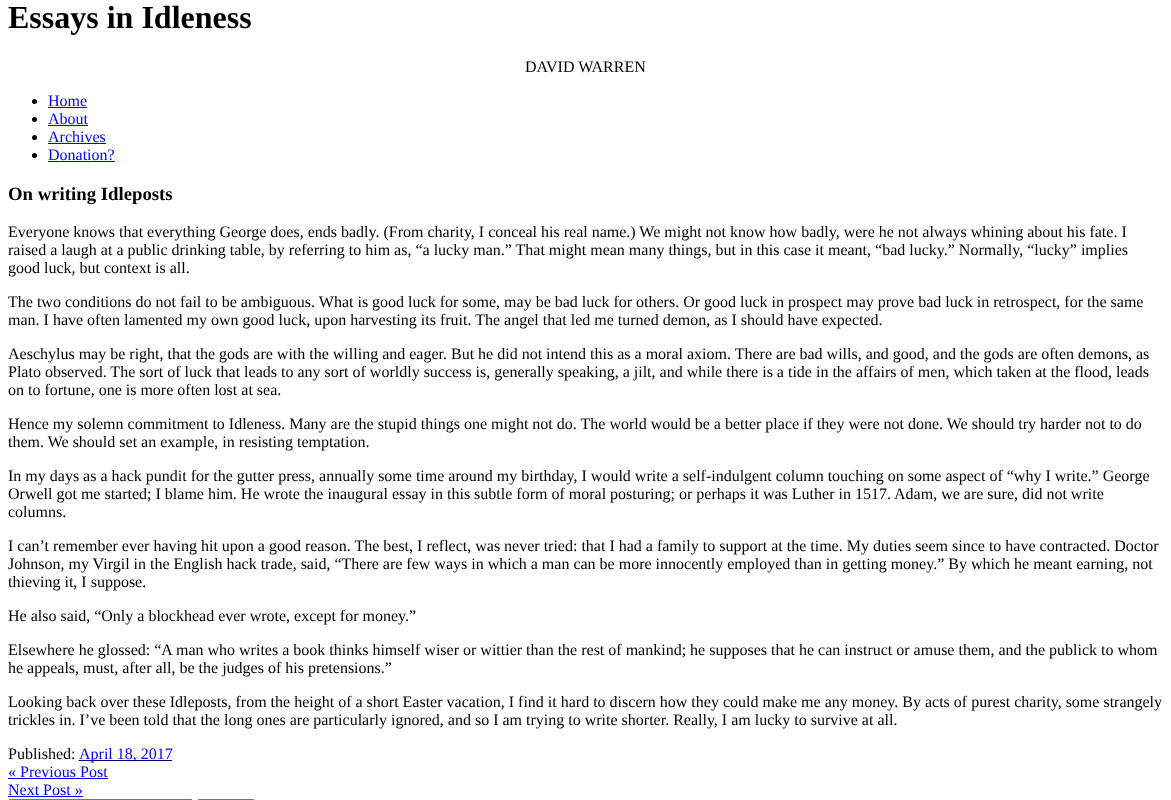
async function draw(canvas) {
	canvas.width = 1171;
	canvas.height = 800;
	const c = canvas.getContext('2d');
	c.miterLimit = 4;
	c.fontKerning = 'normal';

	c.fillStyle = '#fff';
	c.fillRect(0, 0, 1171, 800);
	c.font = 'bold 32px Liberation Serif';
	c.fillStyle = '#000';
	c.fillText('Essays in Idleness', 8, 28);
	c.font = '16px Liberation Serif';
	c.fillText('DAVID WARREN', 525, 72);
	c.beginPath();
	c.arc(34.5, 101.5, 2.5, 0, 2 * Math.PI);
	c.fill();
	c.fillStyle = '#00e';
	c.fillText('Home', 48, 106);
	c.fillRect(48, 107, 39, 1);
	c.fillStyle = '#000';
	c.beginPath();
	c.arc(34.5, 119.5, 2.5, 0, 2 * Math.PI);
	c.fill();
	c.fillStyle = '#00e';
	c.fillText('About', 48, 124);
	c.fillRect(48, 125, 40, 1);
	c.fillStyle = '#000';
	c.beginPath();
	c.arc(34.5, 137.5, 2.5, 0, 2 * Math.PI);
	c.fill();
	c.fillStyle = '#00e';
	c.fillText('Archives', 48, 142);
	c.fillRect(48, 143, 58, 1);
	c.fillStyle = '#000';
	c.beginPath();
	c.arc(34.5, 155.5, 2.5, 0, 2 * Math.PI);
	c.fill();
	c.fillStyle = '#00e';
	c.fillText('Donation?', 48, 160);
	c.fillRect(48, 161, 67, 1);
	c.font = 'bold 18.75px Liberation Serif';
	c.fillStyle = '#000';
	c.fillText('On writing Idleposts', 8, 200);
	c.font = '16px Liberation Serif';
	for (const [text, x, y] of [
		['Everyone knows that everything George does, ends badly. (From charity, I conceal his real name.) We might not know how badly, were he not always whining about his fate. I', 8, 237],
		['raised a laugh at a public drinking table, by referring to him as, “a lucky man.” That might mean many things, but in this case it meant, “bad lucky.” Normally, “lucky” implies', 8, 255],
		['good luck, but context is all.', 8, 273],
		['The two conditions do not fail to be ambiguous. What is good luck for some, may be bad luck for others. Or good luck in prospect may prove bad luck in retrospect, for the same', 8, 307],
		['man. I have often lamented my own good luck, upon harvesting its fruit. The angel that led me turned demon, as I should have expected.', 8, 325],
		['Aeschylus may be right, that the gods are with the willing and eager. But he did not intend this as a moral axiom. There are bad wills, and good, and the gods are often demons, as', 8, 359],
		['Plato observed. The sort of luck that leads to any sort of worldly success is, generally speaking, a jilt, and while there is a tide in the affairs of men, which taken at the flood, leads', 8, 377],
		['on to fortune, one is more often lost at sea.', 8, 395],
		['Hence my solemn commitment to Idleness. Many are the stupid things one might not do. The world would be a better place if they were not done. We should try harder not to do', 8, 429],
		['them. We should set an example, in resisting temptation.', 8, 447],
		['In my days as a hack pundit for the gutter press, annually some time around my birthday, I would write a self-indulgent column touching on some aspect of “why I write.” George', 8, 481],
		['Orwell got me started; I blame him. He wrote the inaugural essay in this subtle form of moral posturing; or perhaps it was Luther in 1517. Adam, we are sure, did not write', 8, 499],
		['columns.', 8, 517],
		['I can’t remember ever having hit upon a good reason. The best, I reflect, was never tried: that I had a family to support at the time. My duties seem since to have contracted. Doctor', 8, 551],
		['Johnson, my Virgil in the English hack trade, said, “There are few ways in which a man can be more innocently employed than in getting money.” By which he meant earning, not', 8, 569],
		['thieving it, I suppose.', 8, 587],
		['He also said, “Only a blockhead ever wrote, except for money.”', 8, 621],
		['Elsewhere he glossed: “A man who writes a book thinks himself wiser or wittier than the rest of mankind; he supposes that he can instruct or amuse them, and the publick to whom', 8, 655],
		['he appeals, must, after all, be the judges of his pretensions.”', 8, 673],
		['Looking back over these Idleposts, from the height of a short Easter vacation, I find it hard to discern how they could make me any money. By acts of purest charity, some strangely', 8, 707],
		['trickles in. I’ve been told that the long ones are particularly ignored, and so I am trying to write shorter. Really, I am lucky to survive at all.', 8, 725],
		['Published:', 8, 759],
	]) {
		c.fillText(text, x, y);
	}
	c.fillStyle = '#00e';
	c.fillRect(79, 760, 93, 1);
	c.beginPath();
	c.moveTo(78.5, 760.5);
	c.lineTo(172.5, 760.5);
	c.strokeStyle = '#000';
	c.setLineDash([1, 1]);
	c.stroke();
	c.fillText('April 18, 2017', 79, 759);
	c.fillText('« Previous Post', 8, 777);
	c.fillRect(8, 778, 100, 1);
	c.fillText('Next Post »', 8, 795);
	c.fillRect(8, 796, 75, 1);
	c.beginPath();
	c.roundRect(8.5, 799.5, 184, 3, 1.5);
	c.strokeStyle = '#767676';
	c.setLineDash([]);
	c.stroke();
	c.beginPath();
	c.roundRect(197.5, 799.5, 57, 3, 1.5);
	c.stroke();
}

draw(document.querySelector('canvas'));
